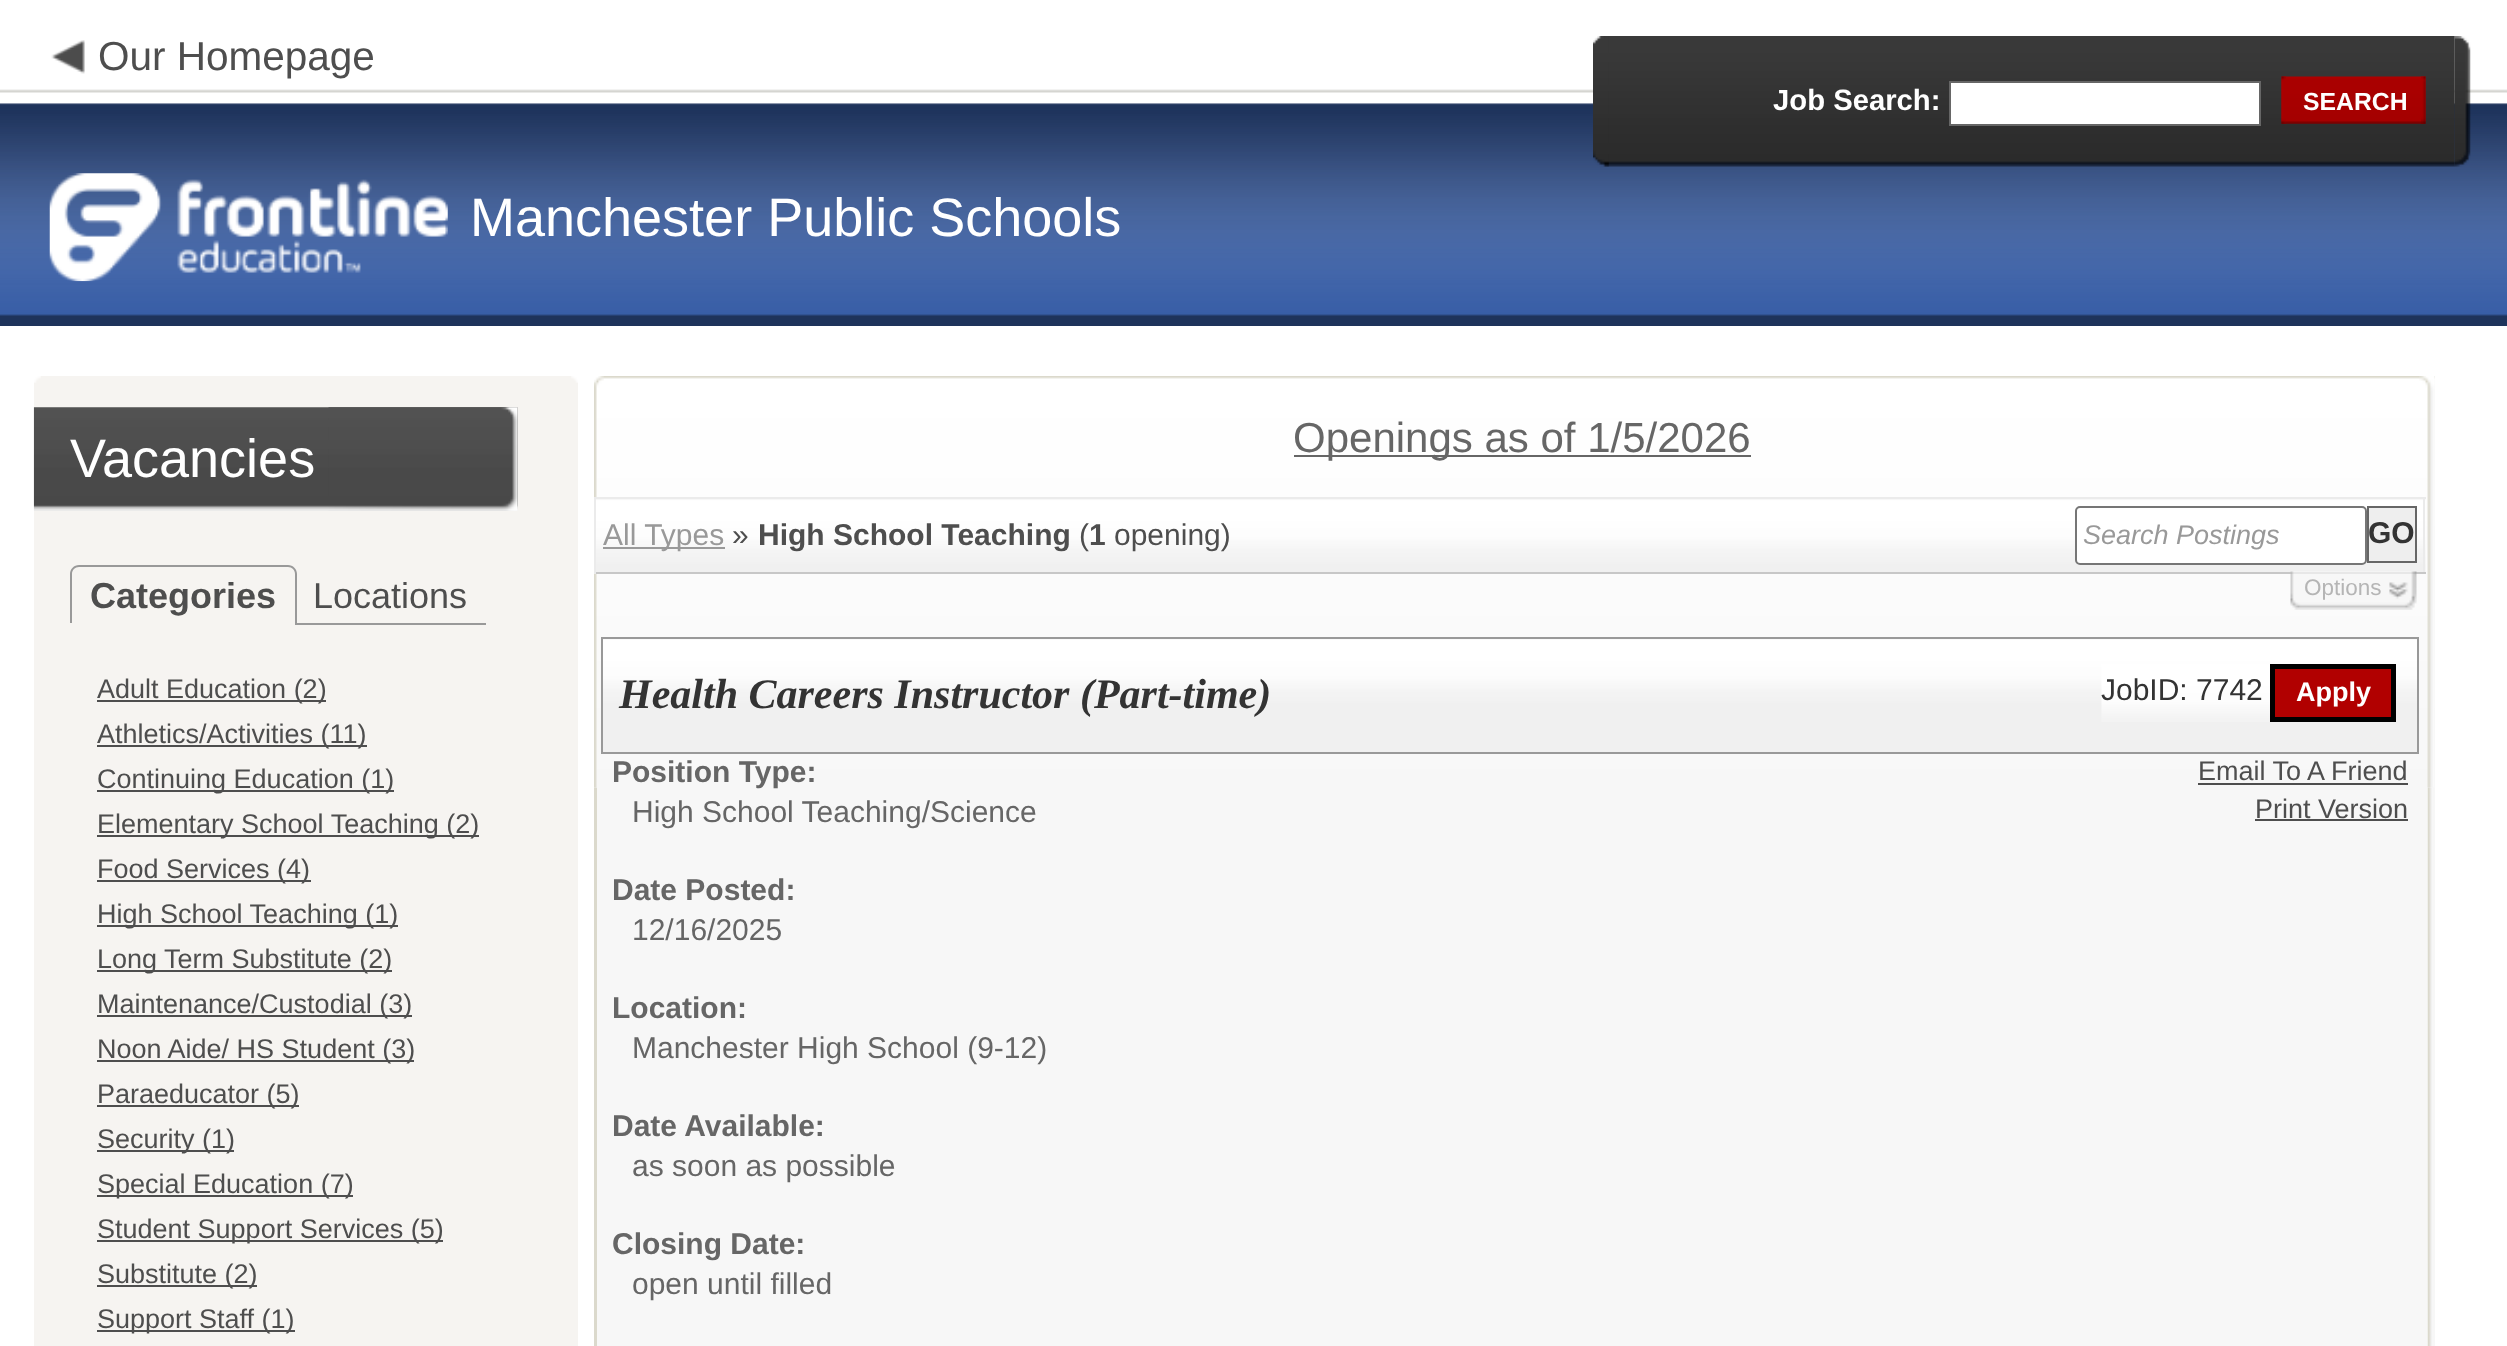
async function draw(canvas) {
	canvas.width = 2507;
	canvas.height = 1346;
	const c = canvas.getContext('2d');
	c.miterLimit = 4;
	c.fontKerning = 'normal';
	async function loadImage(src) {
		const img = new Image();
		img.src = src;
		await img.decode();
		return img;
	}

	c.fillStyle = '#375da6';
	c.fillRect(0, 0, 2507, 1346);
	c.drawImage(await loadImage('img1.png'), 0, 0, 2507, 326);
	c.drawImage(await loadImage('img2.png'), 51, 40, 34, 34);
	c.font = '40.5px Liberation Sans';
	c.fillStyle = '#4e4e4e';
	c.fillText('Our Homepage', 98, 70);
	c.drawImage(await loadImage('img3.png'), 49, 173, 399, 109);
	c.font = '54px Liberation Sans';
	c.fillStyle = '#fff';
	c.fillText('Manchester Public Schools', 470, 236);
	c.drawImage(await loadImage('img4.png'), 1603, 36, 852, 131);
	c.drawImage(await loadImage('img5.png'), 2454, 36, 17, 131);
	c.drawImage(await loadImage('img6.png'), 1593, 36, 16, 131);
	c.font = 'bold 29.25px Liberation Sans';
	c.fillText('Job Search:', 1773, 110);
	c.beginPath();
	c.rect(1950, 82, 310, 43);
	c.fill();
	c.strokeStyle = '#666';
	c.lineWidth = 2;
	c.stroke();
	c.drawImage(await loadImage('img7.png'), 2281, 76, 145, 48);
	c.drawImage(await loadImage('img8.png'), 2421, 76, 5, 48);
	c.drawImage(await loadImage('img9.png'), 2281, 76, 5, 48);
	c.font = 'bold 24.75px Liberation Sans';
	c.fillText('SEARCH', 2303, 110);
	c.fillRect(0, 326, 2507, 1020);
	c.fillStyle = '#f6f4f1';
	c.fillRect(34, 376, 544, 970);
	c.drawImage(await loadImage('img10.png'), 571, 376, 7, 7);
	c.drawImage(await loadImage('img11.png'), 34, 376, 7, 7);
	c.drawImage(await loadImage('img12.png'), 33, 407, 485, 104);
	c.drawImage(await loadImage('img13.png'), 328, 407, 190, 104);
	c.font = '54px Liberation Sans';
	c.fillStyle = '#fff';
	c.fillText('Vacancies', 70, 477);
	c.fillStyle = '#999';
	c.beginPath();
	c.moveTo(79, 565);
	c.lineTo(288, 565);
	c.bezierCurveTo(293, 565, 297, 569, 297, 574);
	c.lineTo(297, 623);
	c.lineTo(70, 623);
	c.lineTo(70, 574);
	c.bezierCurveTo(70, 569, 74, 565, 79, 565);
	c.closePath();
	c.moveTo(79, 567);
	c.lineTo(288, 567);
	c.bezierCurveTo(292, 567, 295, 570, 295, 574);
	c.lineTo(295, 623);
	c.lineTo(72, 623);
	c.lineTo(72, 574);
	c.bezierCurveTo(72, 570, 75, 567, 79, 567);
	c.closePath();
	c.fill('evenodd');
	c.font = 'bold 36px Liberation Sans';
	c.fillStyle = '#4e4e4e';
	c.fillText('Categories', 90, 608);
	c.font = '36px Liberation Sans';
	c.fillText('Locations', 313, 608);
	c.fillStyle = '#999';
	c.fillRect(295, 623, 191, 2);
	c.fillStyle = '#4e4e4e';
	c.fillRect(97, 700, 229, 2);
	c.font = '27px Liberation Sans';
	c.fillText('Adult Education (2)', 97, 698);
	c.fillRect(97, 745, 270, 2);
	c.fillText('Athletics/Activities (11)', 97, 743);
	c.fillRect(97, 790, 297, 2);
	c.fillText('Continuing Education (1)', 97, 788);
	c.fillRect(97, 835, 382, 2);
	c.fillText('Elementary School Teaching (2)', 97, 833);
	c.fillRect(97, 880, 214, 2);
	c.fillText('Food Services (4)', 97, 878);
	c.fillRect(97, 925, 301, 2);
	c.fillText('High School Teaching (1)', 97, 923);
	c.fillRect(97, 970, 295, 2);
	c.fillText('Long Term Substitute (2)', 97, 968);
	c.fillRect(97, 1015, 315, 2);
	c.fillText('Maintenance/Custodial (3)', 97, 1013);
	c.fillRect(97, 1060, 317, 2);
	c.fillText('Noon Aide/ HS Student (3)', 97, 1058);
	c.fillRect(97, 1105, 202, 2);
	c.fillText('Paraeducator (5)', 97, 1103);
	c.fillRect(97, 1150, 137, 2);
	c.fillText('Security (1)', 97, 1148);
	c.fillRect(97, 1195, 256, 2);
	c.fillText('Special Education (7)', 97, 1193);
	c.fillRect(97, 1240, 346, 2);
	c.fillText('Student Support Services (5)', 97, 1238);
	c.fillRect(97, 1285, 160, 2);
	c.fillText('Substitute (2)', 97, 1283);
	c.fillRect(97, 1330, 198, 2);
	c.fillText('Support Staff (1)', 97, 1328);
	c.fillStyle = '#f7f7f7';
	c.fillRect(597, 376, 1838, 970);
	c.drawImage(await loadImage('img14.png'), 2427, 787, 5, 559);
	c.fillStyle = '#dbd9cc';
	c.fillRect(594, 787, 3, 559);
	c.drawImage(await loadImage('img15.png'), 594, 376, 1841, 412);
	c.drawImage(await loadImage('img16.png'), 2419, 376, 16, 412);
	c.drawImage(await loadImage('img17.png'), 594, 376, 10, 412);
	c.fillStyle = '#666';
	c.fillRect(1294, 455, 457, 2);
	c.font = '42px Liberation Sans';
	c.fillText('Openings as of 1/5/2026', 1293, 452);
	c.drawImage(await loadImage('img18.png'), 596, 499, 1830, 73);
	for (const [x, y, w, h, color] of [
		[594, 497, 1832, 2, '#ebebeb'],
		[2423, 497, 2, 77, '#ebebeb'],
		[594, 572, 1832, 2, '#c7c7c7'],
		[594, 497, 2, 77, '#ebebeb'],
		[603, 547, 122, 2, '#999'],
	]) {
		c.fillStyle = color;
		c.fillRect(x, y, w, h);
	}
	c.font = '30px Liberation Sans';
	c.fillText('All Types', 603, 545);
	c.fillStyle = '#4e4e4e';
	c.fillText('»', 732, 545);
	c.font = 'bold 30px Liberation Sans';
	c.fillText('High School Teaching', 758, 545);
	c.font = '30px Liberation Sans';
	c.fillText('(', 1079, 545);
	c.font = 'bold 30px Liberation Sans';
	c.fillText('1', 1089, 545);
	c.font = '30px Liberation Sans';
	c.fillText('opening)', 1114, 545);
	c.fillStyle = '#fff';
	c.beginPath();
	c.roundRect(2076, 507, 290, 57, 4);
	c.fill();
	c.strokeStyle = '#767676';
	c.stroke();
	c.font = 'italic 27px Liberation Sans';
	c.fillStyle = '#999';
	c.fillText('Search Postings', 2083, 544);
	c.fillStyle = '#eee';
	c.beginPath();
	c.rect(2368, 507, 48, 55);
	c.fill();
	c.strokeStyle = '#666';
	c.stroke();
	c.font = 'bold 30px Liberation Sans';
	c.fillStyle = '#333';
	c.fillText('GO', 2368, 543);
	c.drawImage(await loadImage('img19.png'), 2290, 571, 127, 39);
	c.font = '22.5px Liberation Sans';
	c.fillStyle = '#b5b5b5';
	c.fillText('Options', 2304, 595);
	c.drawImage(await loadImage('img20.png'), 603, 639, 1814, 113);
	c.strokeStyle = '#999';
	c.strokeRect(602, 638, 1816, 115);
	c.font = 'italic bold 42px Liberation Serif';
	c.fillStyle = '#333';
	c.fillText('Health Careers Instructor (Part-time)', 619, 708);
	c.drawImage(await loadImage('img21.png'), 2101, 664, 169, 58);
	c.font = '30px Liberation Sans';
	c.fillText('JobID: 7742', 2101, 700);
	c.fillStyle = '#b10000';
	c.beginPath();
	c.rect(2272.5, 666.5, 121, 53);
	c.fill();
	c.strokeStyle = '#000';
	c.lineWidth = 5;
	c.stroke();
	c.font = 'bold 27px Liberation Sans';
	c.fillStyle = '#fff';
	c.fillText('Apply', 2296, 701);
	c.font = 'bold 30px Liberation Sans';
	c.fillStyle = '#666';
	c.fillText('Position Type:', 612, 782);
	c.font = '30px Liberation Sans';
	c.fillText('High School Teaching/Science', 632, 822);
	c.font = '27px Liberation Sans';
	c.fillStyle = '#4e4e4e';
	c.fillText('Email To A Friend', 2198, 780);
	c.fillRect(2198, 783, 210, 2);
	c.fillText('Print Version', 2255, 818);
	c.fillRect(2255, 819, 153, 2);
	c.font = 'bold 30px Liberation Sans';
	c.fillStyle = '#666';
	c.fillText('Date Posted:', 612, 900);
	c.font = '30px Liberation Sans';
	c.fillText('12/16/2025', 632, 940);
	c.font = 'bold 30px Liberation Sans';
	c.fillText('Location:', 612, 1018);
	c.font = '30px Liberation Sans';
	c.fillText('Manchester High School (9-12)', 632, 1058);
	c.font = 'bold 30px Liberation Sans';
	c.fillText('Date Available:', 612, 1136);
	c.font = '30px Liberation Sans';
	c.fillText('as soon as possible', 632, 1176);
	c.font = 'bold 30px Liberation Sans';
	c.fillText('Closing Date:', 612, 1254);
	c.font = '30px Liberation Sans';
	c.fillText('open until filled', 632, 1294);
}

draw(document.querySelector('canvas'));
